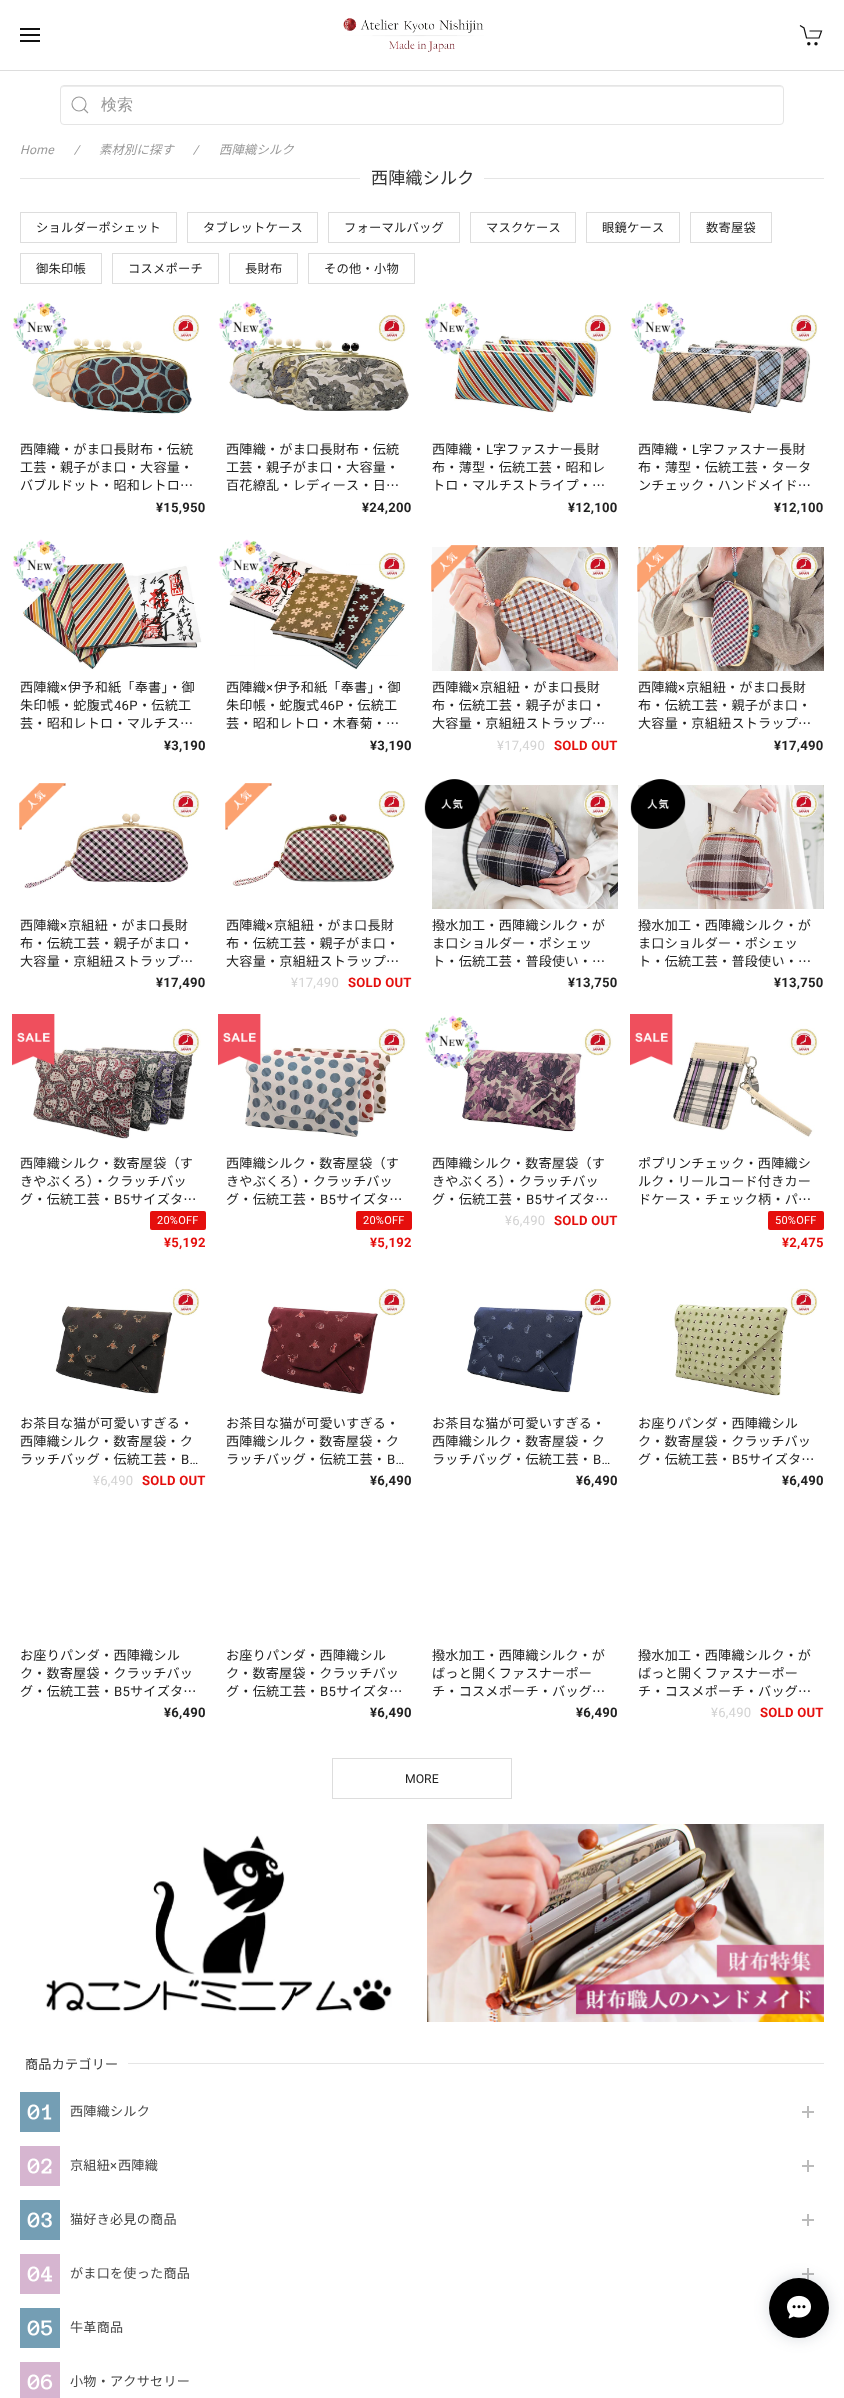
async function draw(canvas) {
	canvas.width = 844;
	canvas.height = 2398;
	const c = canvas.getContext('2d');
	c.miterLimit = 4;
	c.fontKerning = 'normal';
	async function loadImage(src) {
		const img = new Image();
		img.src = src;
		await img.decode();
		return img;
	}

	c.fillStyle = '#fff';
	c.fillRect(0, 0, 844, 2398);
	for (const [x, y, w, h, color] of [
		[0, 70, 844, 1, '#ddd'],
		[20, 34, 20, 2, '#111'],
		[20, 28, 20, 2, '#111'],
		[20, 40, 20, 2, '#111'],
	]) {
		c.fillStyle = color;
		c.fillRect(x, y, w, h);
	}
	c.drawImage(await loadImage('img1.png'), 343, 18, 141, 34);
	c.beginPath();
	c.moveTo(800, 25.5);
	c.lineTo(804, 28);
	c.lineTo(806.5, 38);
	c.lineTo(819, 38);
	c.lineTo(821.5, 31);
	c.lineTo(809.5, 31);
	c.strokeStyle = '#111';
	c.lineWidth = 1.2;
	c.stroke();
	c.beginPath();
	c.arc(808.8, 43.8, 1.7, 0, 2 * Math.PI);
	c.fill();
	c.beginPath();
	c.arc(816, 43.8, 1.7, 0, 2 * Math.PI);
	c.fill();
	c.fillStyle = '#ececec';
	c.beginPath();
	c.moveTo(64, 87);
	c.lineTo(780, 87);
	c.bezierCurveTo(782, 87, 783, 88, 783, 90);
	c.bezierCurveTo(783, 88, 782, 86, 780, 86);
	c.lineTo(64, 86);
	c.bezierCurveTo(62, 86, 61, 88, 61, 90);
	c.bezierCurveTo(61, 88, 62, 87, 64, 87);
	c.closePath();
	c.fill();
	c.beginPath();
	c.roundRect(60.5, 85.5, 723, 39, 3.5);
	c.strokeStyle = '#e5e5e5';
	c.lineWidth = 1;
	c.stroke();
	c.beginPath();
	c.arc(79, 104, 7, 0, 2 * Math.PI);
	c.strokeStyle = '#999';
	c.lineWidth = 1.1;
	c.stroke();
	c.beginPath();
	c.moveTo(84, 109);
	c.lineTo(88, 113);
	c.closePath();
	c.stroke();
	c.font = '500 16px WenQuanYi Zen Hei';
	c.fillStyle = '#999';
	c.fillText('検索', 101, 110);
	c.letterSpacing = '0.25px';
	c.font = 'italic 12.25px Roboto';
	c.fillText('Home', 20, 154);
	c.fillText('/', 74, 154);
	c.font = 'italic 12.25px Noto Sans JP';
	c.fillText('素材別に探す', 99, 154);
	c.font = 'italic 12.25px Roboto';
	c.fillText('/', 193, 154);
	c.font = 'italic 12.25px Noto Sans JP';
	c.fillText('西陣織シルク', 219, 154);
	c.fillStyle = '#e5e5e5';
	c.fillRect(20, 178, 340, 1);
	c.font = '17px Noto Sans JP';
	c.fillStyle = '#333';
	c.fillText('西陣織シルク', 371, 184);
	c.fillStyle = '#e5e5e5';
	c.fillRect(484, 178, 340, 1);
	c.strokeStyle = '#ddd';
	c.lineWidth = 1;
	c.strokeRect(20.5, 212.5, 156, 30);
	c.font = '12.25px Noto Sans JP';
	c.fillStyle = '#212121';
	c.fillText('ショルダーポシェット', 36, 232);
	c.strokeRect(187.5, 212.5, 130, 30);
	c.fillText('タブレットケース', 203, 232);
	c.strokeRect(328.5, 212.5, 131, 30);
	c.fillText('フォーマルバッグ', 344, 232);
	c.strokeRect(470.5, 212.5, 105, 30);
	c.fillText('マスクケース', 486, 232);
	c.strokeRect(586.5, 212.5, 93, 30);
	c.fillText('眼鏡ケース', 602, 232);
	c.strokeRect(690.5, 212.5, 81, 30);
	c.fillText('数寄屋袋', 706, 232);
	c.strokeRect(20.5, 253.5, 81, 30);
	c.fillText('御朱印帳', 36, 273);
	c.strokeRect(112.5, 253.5, 106, 30);
	c.fillText('コスメポーチ', 128, 273);
	c.strokeRect(229.5, 253.5, 68, 30);
	c.fillText('長財布', 245, 273);
	c.strokeRect(308.5, 253.5, 106, 30);
	c.fillText('その他・小物', 324, 273);
	c.drawImage(await loadImage('img3.png'), 32, 315, 168, 99);
	c.drawImage(await loadImage('img2.png'), 12, 301, 56, 55);
	c.font = '13.1px Noto Sans JP';
	for (const [text, x, y] of [
		['西陣織・がま口長財布・伝統', 20, 454],
		['工芸・親子がま口・大容量・', 20, 472],
		['バブルドット・昭和レトロ…', 20, 490],
	]) {
		c.fillText(text, x, y);
	}
	c.font = 'bold 13.1px Roboto';
	c.fillText('¥15,950', 156, 512);
	c.drawImage(await loadImage('img5.png'), 229, 314, 180, 97);
	c.drawImage(await loadImage('img4.png'), 218, 301, 56, 54);
	c.font = '13.1px Noto Sans JP';
	for (const [text, x, y] of [
		['西陣織・がま口長財布・伝統', 226, 454],
		['工芸・親子がま口・大容量・', 226, 472],
		['百花繚乱・レディース・日…', 226, 490],
	]) {
		c.fillText(text, x, y);
	}
	c.font = 'bold 13.1px Roboto';
	c.fillText('¥24,200', 362, 512);
	c.drawImage(await loadImage('img7.png'), 454, 315, 158, 98);
	c.drawImage(await loadImage('img6.png'), 424, 301, 56, 54);
	c.font = '13.1px Noto Sans JP';
	c.fillText('西陣織・', 432, 454);
	c.font = '13.1px Roboto';
	c.fillText('L', 486, 454);
	c.font = '13.1px Noto Sans JP';
	for (const [text, x, y] of [
		['字ファスナー長財', 493, 454],
		['布・薄型・伝統工芸・昭和レ', 432, 472],
		['トロ・マルチストライプ・…', 432, 490],
	]) {
		c.fillText(text, x, y);
	}
	c.font = 'bold 13.1px Roboto';
	c.fillText('¥12,100', 568, 512);
	c.drawImage(await loadImage('img9.png'), 652, 314, 166, 100);
	c.drawImage(await loadImage('img8.png'), 630, 301, 56, 55);
	c.font = '13.1px Noto Sans JP';
	c.fillText('西陣織・', 638, 454);
	c.font = '13.1px Roboto';
	c.fillText('L', 692, 454);
	c.font = '13.1px Noto Sans JP';
	for (const [text, x, y] of [
		['字ファスナー長財', 699, 454],
		['布・薄型・伝統工芸・タータ', 638, 472],
		['ンチェック・ハンドメイド…', 638, 490],
	]) {
		c.fillText(text, x, y);
	}
	c.font = 'bold 13.1px Roboto';
	c.fillText('¥12,100', 774, 512);
	c.drawImage(await loadImage('img11.png'), 22, 553, 180, 117);
	c.drawImage(await loadImage('img10.png'), 12, 539, 56, 55);
	c.font = '13.1px Noto Sans JP';
	c.fillText('西陣織', 20, 692);
	c.font = '13.1px Roboto';
	c.fillText('×', 60, 692);
	c.font = '13.1px Noto Sans JP';
	c.fillText('伊予和紙「奉書」・御', 68, 692);
	c.fillText('朱印帳・蛇腹式', 20, 710);
	c.font = '13.1px Roboto';
	c.fillText('46P', 114, 710);
	c.font = '13.1px Noto Sans JP';
	c.fillText('・伝統工', 138, 710);
	c.fillText('芸・昭和レトロ・マルチス…', 20, 728);
	c.font = 'bold 13.1px Roboto';
	c.fillText('¥3,190', 164, 750);
	c.drawImage(await loadImage('img13.png'), 229, 551, 177, 119);
	c.drawImage(await loadImage('img12.png'), 218, 539, 56, 54);
	c.font = '13.1px Noto Sans JP';
	c.fillText('西陣織', 226, 692);
	c.font = '13.1px Roboto';
	c.fillText('×', 266, 692);
	c.font = '13.1px Noto Sans JP';
	c.fillText('伊予和紙「奉書」・御', 274, 692);
	c.fillText('朱印帳・蛇腹式', 226, 710);
	c.font = '13.1px Roboto';
	c.fillText('46P', 320, 710);
	c.font = '13.1px Noto Sans JP';
	c.fillText('・伝統工', 344, 710);
	c.fillText('芸・昭和レトロ・木春菊・…', 226, 728);
	c.font = 'bold 13.1px Roboto';
	c.fillText('¥3,190', 370, 750);
	c.drawImage(await loadImage('img15.png'), 432, 547, 186, 124);
	c.drawImage(await loadImage('img14.png'), 431, 545, 47, 47);
	c.font = '13.1px Noto Sans JP';
	c.fillText('西陣織', 432, 692);
	c.font = '13.1px Roboto';
	c.fillText('×', 472, 692);
	c.font = '13.1px Noto Sans JP';
	for (const [text, x, y] of [
		['京組紐・がま口長財', 480, 692],
		['布・伝統工芸・親子がま口・', 432, 710],
		['大容量・京組紐ストラップ…', 432, 728],
	]) {
		c.fillText(text, x, y);
	}
	c.font = '13.1px Roboto';
	c.fillStyle = '#d3d3d3';
	c.fillText('¥17,490', 497, 750);
	c.font = 'bold 13.1px Roboto';
	c.fillStyle = '#e50f0d';
	c.fillText('SOLD OUT', 554, 750);
	c.drawImage(await loadImage('img17.png'), 638, 547, 186, 124);
	c.drawImage(await loadImage('img16.png'), 637, 545, 47, 47);
	c.font = '13.1px Noto Sans JP';
	c.fillStyle = '#212121';
	c.fillText('西陣織', 638, 692);
	c.font = '13.1px Roboto';
	c.fillText('×', 678, 692);
	c.font = '13.1px Noto Sans JP';
	for (const [text, x, y] of [
		['京組紐・がま口長財', 686, 692],
		['布・伝統工芸・親子がま口・', 638, 710],
		['大容量・京組紐ストラップ…', 638, 728],
	]) {
		c.fillText(text, x, y);
	}
	c.font = 'bold 13.1px Roboto';
	c.fillText('¥17,490', 774, 750);
	c.drawImage(await loadImage('img19.png'), 24, 790, 176, 99);
	c.drawImage(await loadImage('img18.png'), 19, 783, 47, 47);
	c.font = '13.1px Noto Sans JP';
	c.fillText('西陣織', 20, 930);
	c.font = '13.1px Roboto';
	c.fillText('×', 60, 930);
	c.font = '13.1px Noto Sans JP';
	for (const [text, x, y] of [
		['京組紐・がま口長財', 68, 930],
		['布・伝統工芸・親子がま口・', 20, 948],
		['大容量・京組紐ストラップ…', 20, 966],
	]) {
		c.fillText(text, x, y);
	}
	c.font = 'bold 13.1px Roboto';
	c.fillText('¥17,490', 156, 987);
	c.drawImage(await loadImage('img20.png'), 232, 790, 174, 96);
	c.drawImage(await loadImage('img18.png'), 225, 783, 47, 47);
	c.font = '13.1px Noto Sans JP';
	c.fillText('西陣織', 226, 930);
	c.font = '13.1px Roboto';
	c.fillText('×', 266, 930);
	c.font = '13.1px Noto Sans JP';
	for (const [text, x, y] of [
		['京組紐・がま口長財', 274, 930],
		['布・伝統工芸・親子がま口・', 226, 948],
		['大容量・京組紐ストラップ…', 226, 966],
	]) {
		c.fillText(text, x, y);
	}
	c.font = '13.1px Roboto';
	c.fillStyle = '#d3d3d3';
	c.fillText('¥17,490', 291, 987);
	c.font = 'bold 13.1px Roboto';
	c.fillStyle = '#e50f0d';
	c.fillText('SOLD OUT', 348, 987);
	c.drawImage(await loadImage('img22.png'), 432, 785, 186, 124);
	c.drawImage(await loadImage('img21.png'), 424, 779, 56, 50);
	c.font = '13.1px Noto Sans JP';
	c.fillStyle = '#212121';
	for (const [text, x, y] of [
		['撥水加工・西陣織シルク・が', 432, 930],
		['ま口ショルダー・ポシェッ', 432, 948],
		['ト・伝統工芸・普段使い・…', 432, 966],
	]) {
		c.fillText(text, x, y);
	}
	c.font = 'bold 13.1px Roboto';
	c.fillText('¥13,750', 568, 987);
	c.drawImage(await loadImage('img24.png'), 638, 785, 186, 124);
	c.drawImage(await loadImage('img23.png'), 630, 779, 56, 50);
	c.font = '13.1px Noto Sans JP';
	for (const [text, x, y] of [
		['撥水加工・西陣織シルク・が', 638, 930],
		['ま口ショルダー・ポシェッ', 638, 948],
		['ト・伝統工芸・普段使い・…', 638, 966],
	]) {
		c.fillText(text, x, y);
	}
	c.font = 'bold 13.1px Roboto';
	c.fillText('¥13,750', 774, 987);
	c.drawImage(await loadImage('img26.png'), 33, 1028, 168, 111);
	c.drawImage(await loadImage('img25.png'), 12, 1014, 43, 52);
	c.font = '13.1px Noto Sans JP';
	for (const [text, x, y] of [
		['西陣織シルク・数寄屋袋（す', 20, 1168],
		['きやぶくろ）・クラッチバッ', 20, 1186],
		['グ・伝統工芸・', 20, 1204],
	]) {
		c.fillText(text, x, y);
	}
	c.font = '13.1px Roboto';
	c.fillText('B5', 114, 1204);
	c.font = '13.1px Noto Sans JP';
	c.fillText('サイズタ…', 130, 1204);
	c.fillStyle = '#e50f0d';
	c.beginPath();
	c.roundRect(150, 1211, 56, 19, 2);
	c.fill();
	c.font = '11px Roboto';
	c.fillStyle = '#fff';
	c.fillText('20%OFF', 157, 1224);
	c.font = 'bold 13.1px Roboto';
	c.fillStyle = '#e50f0d';
	c.fillText('¥5,192', 164, 1247);
	c.drawImage(await loadImage('img28.png'), 245, 1028, 162, 109);
	c.drawImage(await loadImage('img27.png'), 218, 1014, 43, 52);
	c.font = '13.1px Noto Sans JP';
	c.fillStyle = '#212121';
	for (const [text, x, y] of [
		['西陣織シルク・数寄屋袋（す', 226, 1168],
		['きやぶくろ）・クラッチバッ', 226, 1186],
		['グ・伝統工芸・', 226, 1204],
	]) {
		c.fillText(text, x, y);
	}
	c.font = '13.1px Roboto';
	c.fillText('B5', 320, 1204);
	c.font = '13.1px Noto Sans JP';
	c.fillText('サイズタ…', 336, 1204);
	c.fillStyle = '#e50f0d';
	c.beginPath();
	c.roundRect(356, 1211, 56, 19, 2);
	c.fill();
	c.font = '11px Roboto';
	c.fillStyle = '#fff';
	c.fillText('20%OFF', 363, 1224);
	c.font = 'bold 13.1px Roboto';
	c.fillStyle = '#e50f0d';
	c.fillText('¥5,192', 370, 1247);
	c.drawImage(await loadImage('img30.png'), 462, 1028, 151, 104);
	c.drawImage(await loadImage('img29.png'), 424, 1015, 56, 54);
	c.font = '13.1px Noto Sans JP';
	c.fillStyle = '#212121';
	for (const [text, x, y] of [
		['西陣織シルク・数寄屋袋（す', 432, 1168],
		['きやぶくろ）・クラッチバッ', 432, 1186],
		['グ・伝統工芸・', 432, 1204],
	]) {
		c.fillText(text, x, y);
	}
	c.font = '13.1px Roboto';
	c.fillText('B5', 526, 1204);
	c.font = '13.1px Noto Sans JP';
	c.fillText('サイズタ…', 542, 1204);
	c.font = '13.1px Roboto';
	c.fillStyle = '#d3d3d3';
	c.fillText('¥6,490', 505, 1225);
	c.font = 'bold 13.1px Roboto';
	c.fillStyle = '#e50f0d';
	c.fillText('SOLD OUT', 554, 1225);
	c.drawImage(await loadImage('img31.png'), 630, 1014, 43, 52);
	c.drawImage(await loadImage('img32.png'), 673, 1028, 146, 109);
	c.font = '13.1px Noto Sans JP';
	c.fillStyle = '#212121';
	for (const [text, x, y] of [
		['ポプリンチェック・西陣織シ', 638, 1168],
		['ルク・リールコード付きカー', 638, 1186],
		['ドケース・チェック柄・パ…', 638, 1204],
	]) {
		c.fillText(text, x, y);
	}
	c.fillStyle = '#e50f0d';
	c.beginPath();
	c.roundRect(768, 1211, 56, 19, 2);
	c.fill();
	c.font = '11px Roboto';
	c.fillStyle = '#fff';
	c.fillText('50%OFF', 775, 1224);
	c.font = 'bold 13.1px Roboto';
	c.fillStyle = '#e50f0d';
	c.fillText('¥2,475', 782, 1247);
	c.drawImage(await loadImage('img33.png'), 55, 1288, 145, 106);
	c.font = '13.1px Noto Sans JP';
	c.fillStyle = '#212121';
	for (const [text, x, y] of [
		['お茶目な猫が可愛いすぎる・', 20, 1428],
		['西陣織シルク・数寄屋袋・ク', 20, 1446],
		['ラッチバッグ・伝統工芸・', 20, 1464],
	]) {
		c.fillText(text, x, y);
	}
	c.font = '13.1px Roboto';
	c.fillText('B…', 181, 1464);
	c.fillStyle = '#d3d3d3';
	c.fillText('¥6,490', 93, 1485);
	c.font = 'bold 13.1px Roboto';
	c.fillStyle = '#e50f0d';
	c.fillText('SOLD OUT', 142, 1485);
	c.drawImage(await loadImage('img34.png'), 261, 1288, 145, 107);
	c.font = '13.1px Noto Sans JP';
	c.fillStyle = '#212121';
	for (const [text, x, y] of [
		['お茶目な猫が可愛いすぎる・', 226, 1428],
		['西陣織シルク・数寄屋袋・ク', 226, 1446],
		['ラッチバッグ・伝統工芸・', 226, 1464],
	]) {
		c.fillText(text, x, y);
	}
	c.font = '13.1px Roboto';
	c.fillText('B…', 387, 1464);
	c.font = 'bold 13.1px Roboto';
	c.fillText('¥6,490', 370, 1485);
	c.drawImage(await loadImage('img35.png'), 467, 1288, 145, 105);
	c.font = '13.1px Noto Sans JP';
	for (const [text, x, y] of [
		['お茶目な猫が可愛いすぎる・', 432, 1428],
		['西陣織シルク・数寄屋袋・ク', 432, 1446],
		['ラッチバッグ・伝統工芸・', 432, 1464],
	]) {
		c.fillText(text, x, y);
	}
	c.font = '13.1px Roboto';
	c.fillText('B…', 593, 1464);
	c.font = 'bold 13.1px Roboto';
	c.fillText('¥6,490', 576, 1485);
	c.drawImage(await loadImage('img36.png'), 674, 1288, 144, 108);
	c.font = '13.1px Noto Sans JP';
	for (const [text, x, y] of [
		['お座りパンダ・西陣織シル', 638, 1428],
		['ク・数寄屋袋・クラッチバッ', 638, 1446],
		['グ・伝統工芸・', 638, 1464],
	]) {
		c.fillText(text, x, y);
	}
	c.font = '13.1px Roboto';
	c.fillText('B5', 732, 1464);
	c.font = '13.1px Noto Sans JP';
	c.fillText('サイズタ…', 748, 1464);
	c.font = 'bold 13.1px Roboto';
	c.fillText('¥6,490', 782, 1485);
	c.font = '13.1px Noto Sans JP';
	for (const [text, x, y] of [
		['お座りパンダ・西陣織シル', 20, 1660],
		['ク・数寄屋袋・クラッチバッ', 20, 1678],
		['グ・伝統工芸・', 20, 1696],
	]) {
		c.fillText(text, x, y);
	}
	c.font = '13.1px Roboto';
	c.fillText('B5', 114, 1696);
	c.font = '13.1px Noto Sans JP';
	c.fillText('サイズタ…', 130, 1696);
	c.font = 'bold 13.1px Roboto';
	c.fillText('¥6,490', 164, 1717);
	c.font = '13.1px Noto Sans JP';
	for (const [text, x, y] of [
		['お座りパンダ・西陣織シル', 226, 1660],
		['ク・数寄屋袋・クラッチバッ', 226, 1678],
		['グ・伝統工芸・', 226, 1696],
	]) {
		c.fillText(text, x, y);
	}
	c.font = '13.1px Roboto';
	c.fillText('B5', 320, 1696);
	c.font = '13.1px Noto Sans JP';
	c.fillText('サイズタ…', 336, 1696);
	c.font = 'bold 13.1px Roboto';
	c.fillText('¥6,490', 370, 1717);
	c.font = '13.1px Noto Sans JP';
	for (const [text, x, y] of [
		['撥水加工・西陣織シルク・が', 432, 1660],
		['ばっと開くファスナーポー', 432, 1678],
		['チ・コスメポーチ・バッグ…', 432, 1696],
	]) {
		c.fillText(text, x, y);
	}
	c.font = 'bold 13.1px Roboto';
	c.fillText('¥6,490', 576, 1717);
	c.font = '13.1px Noto Sans JP';
	for (const [text, x, y] of [
		['撥水加工・西陣織シルク・が', 638, 1660],
		['ばっと開くファスナーポー', 638, 1678],
		['チ・コスメポーチ・バッグ…', 638, 1696],
	]) {
		c.fillText(text, x, y);
	}
	c.font = '13.1px Roboto';
	c.fillStyle = '#d3d3d3';
	c.fillText('¥6,490', 711, 1717);
	c.font = 'bold 13.1px Roboto';
	c.fillStyle = '#e50f0d';
	c.fillText('SOLD OUT', 760, 1717);
	c.strokeRect(332.5, 1758.5, 179, 40);
	c.letterSpacing = '0px';
	c.font = '12.25px Roboto';
	c.fillStyle = '#212121';
	c.fillText('MORE', 405, 1783);
	c.drawImage(await loadImage('img37.png'), 45, 1835, 347, 177);
	c.drawImage(await loadImage('img38.png'), 427, 1824, 397, 198);
	c.letterSpacing = '0.25px';
	c.font = '13.1px Noto Sans JP';
	c.fillStyle = '#333';
	c.fillText('商品カテゴリー', 25, 2069);
	c.fillStyle = '#e5e5e5';
	c.fillRect(128, 2063, 696, 1);
	c.drawImage(await loadImage('img39.png'), 20, 2092, 40, 40);
	c.fillStyle = '#454545';
	c.fillText('西陣織シルク', 70, 2116);
	c.fillStyle = '#bbb';
	c.fillRect(802, 2111, 12, 2);
	c.fillRect(807, 2106, 2, 12);
	c.drawImage(await loadImage('img40.png'), 20, 2146, 40, 40);
	c.fillStyle = '#454545';
	c.fillText('京組紐', 70, 2170);
	c.font = '13.1px Roboto';
	c.fillText('×', 110, 2170);
	c.font = '13.1px Noto Sans JP';
	c.fillText('西陣織', 118, 2170);
	c.fillStyle = '#bbb';
	c.fillRect(802, 2165, 12, 2);
	c.fillRect(807, 2160, 2, 12);
	c.drawImage(await loadImage('img41.png'), 20, 2200, 40, 40);
	c.fillStyle = '#454545';
	c.fillText('猫好き必見の商品', 70, 2224);
	c.fillStyle = '#bbb';
	c.fillRect(802, 2219, 12, 2);
	c.fillRect(807, 2214, 2, 12);
	c.drawImage(await loadImage('img42.png'), 20, 2254, 40, 40);
	c.fillStyle = '#454545';
	c.fillText('がま口を使った商品', 70, 2278);
	c.fillStyle = '#bbb';
	c.fillRect(802, 2273, 12, 2);
	c.fillRect(807, 2268, 2, 12);
	c.drawImage(await loadImage('img43.png'), 20, 2308, 40, 40);
	c.fillStyle = '#454545';
	c.fillText('牛革商品', 70, 2332);
	c.drawImage(await loadImage('img44.png'), 20, 2362, 40, 36);
	c.fillText('小物・アクサセリー', 70, 2386);
	c.fillStyle = '#33425833';
	c.filter = 'blur(7.5px)';
	c.beginPath();
	c.roundRect(769, 2278, 60, 60, 30);
	c.fill();
	c.filter = 'none';
	c.fillStyle = '#000';
	c.beginPath();
	c.arc(799, 2308, 30, 0, 2 * Math.PI);
	c.fill();
	c.drawImage(await loadImage('img45.png'), 787, 2295, 24, 24);
}

draw(document.querySelector('canvas'));
